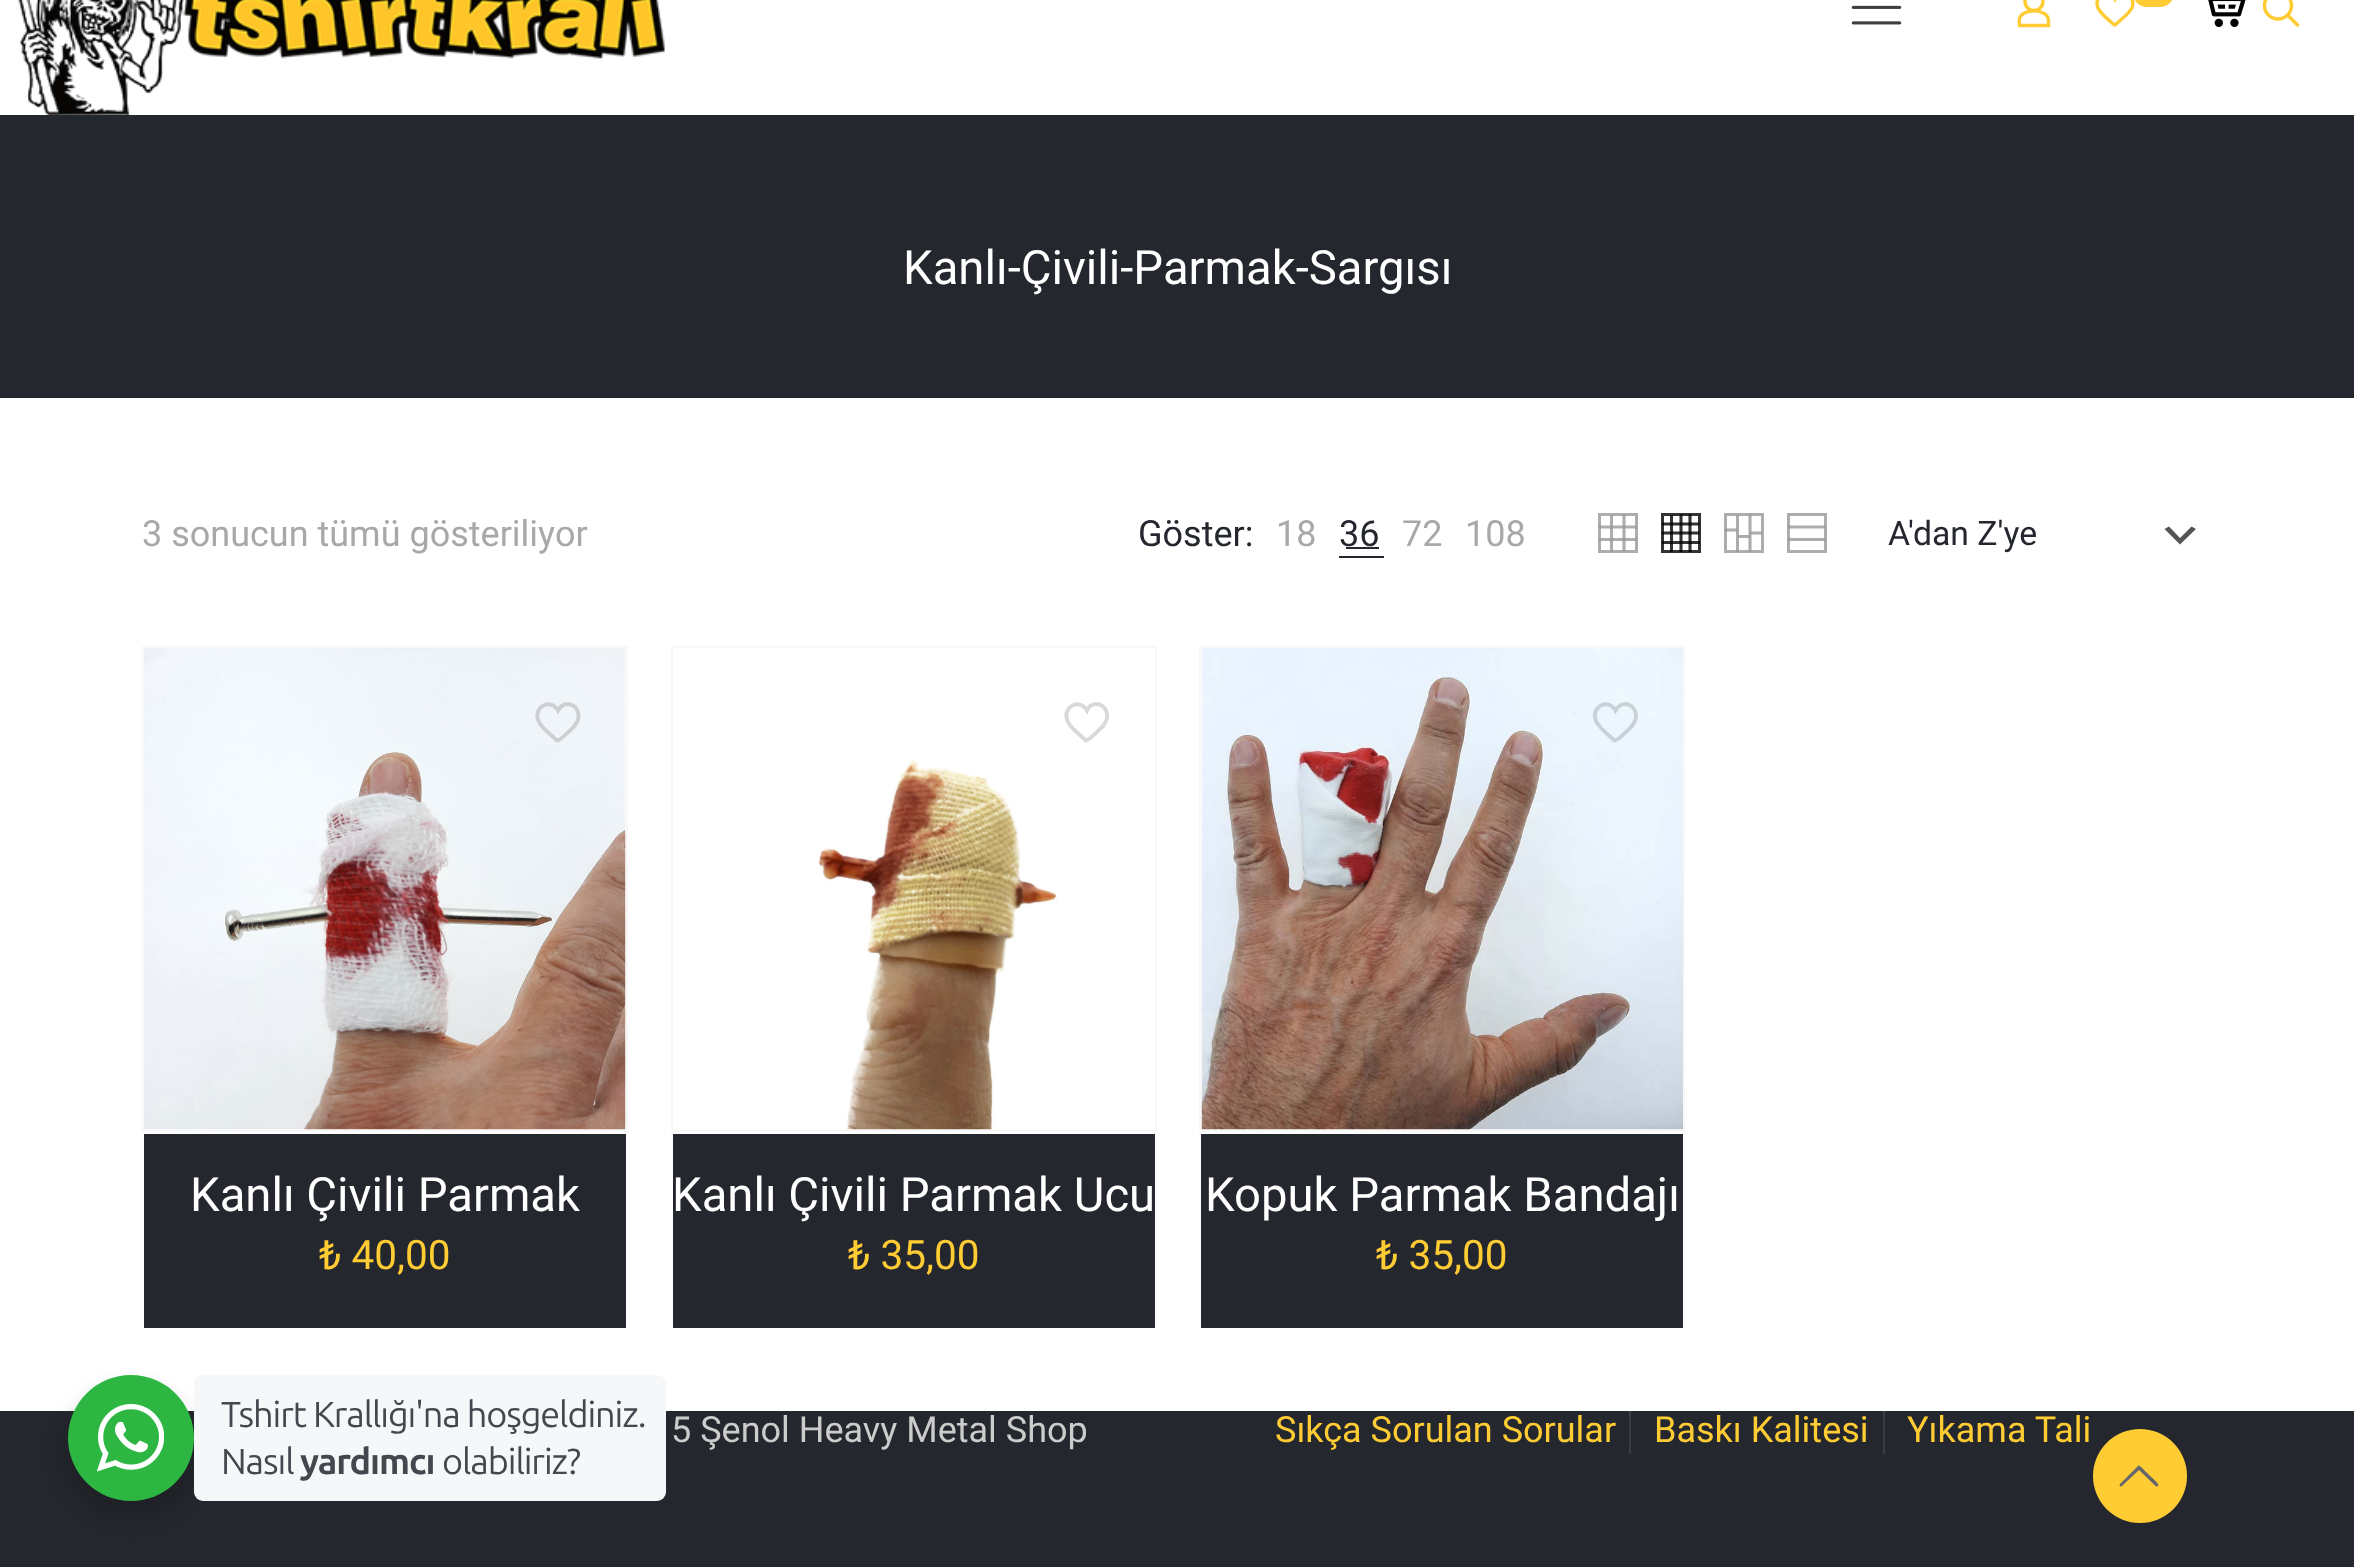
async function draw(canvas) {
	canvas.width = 2354;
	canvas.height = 1567;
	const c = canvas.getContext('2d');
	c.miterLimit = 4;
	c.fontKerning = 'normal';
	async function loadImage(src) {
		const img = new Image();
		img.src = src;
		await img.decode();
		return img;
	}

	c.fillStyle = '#25272e';
	c.fillRect(0, 0, 2354, 1567);
	c.fillStyle = '#fff';
	c.fillRect(0, 0, 2354, 115);
	c.drawImage(await loadImage('img1.png'), 18, 0, 647, 115);
	c.drawImage(await loadImage('img2.png'), 1851, 5, 51, 20);
	c.beginPath();
	c.arc(2034, 1.5, 9, 0, 2 * Math.PI);
	c.strokeStyle = '#fc3';
	c.lineWidth = 3.4;
	c.stroke();
	c.beginPath();
	c.moveTo(2048.5, 20.5);
	c.lineTo(2048.5, 25.5);
	c.lineTo(2019.5, 25.5);
	c.bezierCurveTo(2019.5, 23.5, 2019, 20.5, 2019.5, 18.5);
	c.bezierCurveTo(2023, 7.5, 2048.5, 8.5, 2048.5, 20.5);
	c.closePath();
	c.stroke();
	c.beginPath();
	c.moveTo(2123.5, -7);
	c.bezierCurveTo(2119.5, -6.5, 2116.5, -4.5, 2115, -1);
	c.bezierCurveTo(2108.5, -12.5, 2093, -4, 2098, 8);
	c.bezierCurveTo(2100.5, 13.5, 2109, 20.5, 2114.5, 25);
	c.lineTo(2115.5, 24.5);
	c.lineTo(2119, 21.5);
	c.bezierCurveTo(2122.5, 18.5, 2126, 15.5, 2129, 12);
	c.lineTo(2132, 8);
	c.bezierCurveTo(2134.5, 1.5, 2131, -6.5, 2123.5, -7);
	c.closePath();
	c.stroke();
	c.fillStyle = '#fc3';
	c.beginPath();
	c.roundRect(2133, -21, 41, 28, 20.5);
	c.fill();
	c.drawImage(await loadImage('img3.png'), 2208, 0, 38, 27);
	c.beginPath();
	c.arc(2278, 5.5, 13.5, 0, 2 * Math.PI);
	c.stroke();
	c.beginPath();
	c.moveTo(2287.5, 15);
	c.lineTo(2298.5, 26);
	c.stroke();
	c.font = '47.25px Roboto';
	c.fillStyle = '#fff';
	c.fillText('Kanlı-Çivili-Parmak-Sargısı', 903, 284);
	for (const [x, y, w, h, color] of [
		[1629, 1406, 2, 48, '#3b3d43'],
		[1883, 1406, 2, 48, '#3b3d43'],
		[0, 398, 2354, 1013, '#fff'],
	]) {
		c.fillStyle = color;
		c.fillRect(x, y, w, h);
	}
	c.font = '36px Roboto';
	c.fillStyle = '#a8a8a8';
	c.fillText('3 sonucun tümü gösteriliyor', 142, 546);
	c.fillStyle = '#25272e';
	c.fillText('Göster:', 1138, 546);
	c.fillStyle = '#a8a8a8';
	c.fillText('18', 1276, 546);
	c.fillStyle = '#25272e';
	c.fillText('36', 1339, 546);
	c.fillRect(1346, 547, 33, 2);
	c.fillRect(1339, 556, 45, 2);
	c.fillStyle = '#a8a8a8';
	c.fillText('72', 1402, 546);
	c.fillText('108', 1465, 546);
	c.fillStyle = '#adadad';
	c.fillRect(1610, 515, 3, 37);
	c.beginPath();
	c.moveTo(1624, 552);
	c.lineTo(1624, 514.5);
	c.strokeStyle = '#adadad';
	c.lineWidth = 3.1;
	c.stroke();
	c.strokeStyle = '#999999cc';
	c.lineWidth = 3;
	c.strokeRect(1599.5, 514.5, 37, 37);
	c.beginPath();
	c.moveTo(1599, 527);
	c.lineTo(1636.5, 527);
	c.lineWidth = 3.1;
	c.stroke();
	c.fillStyle = '#999999cc';
	c.fillRect(1599, 538, 38, 3);
	c.beginPath();
	c.moveTo(1690, 552);
	c.lineTo(1690, 514.5);
	c.strokeStyle = '#333';
	c.stroke();
	c.fillStyle = '#333';
	c.fillRect(1670, 515, 3, 37);
	c.beginPath();
	c.moveTo(1681, 552);
	c.lineTo(1681, 514.5);
	c.stroke();
	c.strokeStyle = '#000000cc';
	c.lineWidth = 3;
	c.strokeRect(1662.5, 514.5, 37, 37);
	c.beginPath();
	c.moveTo(1662, 533);
	c.lineTo(1699.5, 533);
	c.moveTo(1662, 524);
	c.lineTo(1699.5, 524);
	c.lineWidth = 3.1;
	c.stroke();
	c.fillStyle = '#000000cc';
	c.fillRect(1662, 541, 38, 3);
	c.beginPath();
	c.moveTo(1725, 530);
	c.lineTo(1737.5, 530);
	c.strokeStyle = '#adadad';
	c.stroke();
	c.fillStyle = '#adadad';
	c.fillRect(1738, 535, 12, 3);
	c.strokeStyle = '#999999cc';
	c.lineWidth = 3;
	c.strokeRect(1725.5, 514.5, 37, 37);
	c.beginPath();
	c.moveTo(1750, 533);
	c.lineTo(1762.5, 533);
	c.lineWidth = 3.1;
	c.stroke();
	c.fillStyle = '#999999cc';
	c.fillRect(1736, 515, 3, 37);
	c.beginPath();
	c.moveTo(1750, 552);
	c.lineTo(1750, 514.5);
	c.stroke();
	c.strokeStyle = '#adadad';
	c.lineWidth = 3;
	c.strokeRect(1788.5, 514.5, 37, 37);
	c.beginPath();
	c.moveTo(1788, 527);
	c.lineTo(1825.5, 527);
	c.strokeStyle = '#999999cc';
	c.lineWidth = 3.1;
	c.stroke();
	c.fillRect(1788, 538, 38, 3);
	c.fillStyle = '#555';
	c.beginPath();
	c.moveTo(2169, 526.5);
	c.lineTo(2180, 538);
	c.lineTo(2191.5, 526.5);
	c.lineTo(2196, 529);
	c.lineTo(2180, 544.5);
	c.lineTo(2164.5, 529);
	c.closePath();
	c.fill();
	c.font = '33.75px Roboto';
	c.fillStyle = '#25272e';
	c.fillText('A\'dan Z\'ye', 1888, 545);
	c.strokeStyle = '#f8f8f8';
	c.lineWidth = 2;
	c.strokeRect(143, 647, 484, 484);
	c.drawImage(await loadImage('img4.png'), 144, 648, 482, 482);
	c.beginPath();
	c.moveTo(567.5, 704);
	c.bezierCurveTo(563.5, 704, 560, 707, 558, 710.5);
	c.bezierCurveTo(550.5, 697, 532.5, 707.5, 538.5, 721);
	c.bezierCurveTo(541.5, 728, 551, 735, 557, 740.5);
	c.bezierCurveTo(560.5, 740.5, 573.5, 727, 574.5, 726);
	c.lineTo(577.5, 721);
	c.bezierCurveTo(580.5, 713.5, 576.5, 704.5, 567.5, 704);
	c.closePath();
	c.strokeStyle = '#00000026';
	c.lineWidth = 3.9;
	c.stroke();
	c.fillRect(144, 1134, 482, 194);
	c.font = '47.25px Roboto';
	c.fillStyle = '#fff';
	c.fillText('Kanlı Çivili Parmak', 190, 1211);
	c.font = '40.5px Roboto';
	c.fillStyle = '#fc3';
	c.fillText('₺ 40,00', 319, 1269);
	c.strokeStyle = '#f8f8f8';
	c.lineWidth = 2;
	c.strokeRect(672, 647, 484, 484);
	c.beginPath();
	c.moveTo(1096.5, 704);
	c.bezierCurveTo(1092, 704, 1088.5, 707, 1087, 710.5);
	c.bezierCurveTo(1079.5, 697, 1061.5, 707.5, 1067.5, 721);
	c.bezierCurveTo(1070.5, 728, 1080, 735, 1086, 740.5);
	c.bezierCurveTo(1089, 740.5, 1102, 727, 1103, 726);
	c.lineTo(1106, 721);
	c.bezierCurveTo(1109.5, 713.5, 1105, 704.5, 1096.5, 704);
	c.closePath();
	c.strokeStyle = '#d9d9d9';
	c.lineWidth = 3.9;
	c.stroke();
	c.drawImage(await loadImage('img5.png'), 817, 759, 241, 371);
	c.fillStyle = '#25272e';
	c.fillRect(673, 1134, 482, 194);
	c.font = '47.25px Roboto';
	c.fillStyle = '#fff';
	c.fillText('Kanlı Çivili Parmak Ucu', 672, 1211);
	c.font = '40.5px Roboto';
	c.fillStyle = '#fc3';
	c.fillText('₺ 35,00', 848, 1269);
	c.strokeStyle = '#f8f8f8';
	c.lineWidth = 2;
	c.strokeRect(1200, 647, 484, 484);
	c.drawImage(await loadImage('img6.png'), 1201, 648, 482, 482);
	c.beginPath();
	c.moveTo(1625, 704);
	c.bezierCurveTo(1621, 704, 1617.5, 707, 1615.5, 710.5);
	c.bezierCurveTo(1608, 697, 1590, 707.5, 1596, 721);
	c.bezierCurveTo(1599, 728, 1608.5, 735, 1614.5, 740.5);
	c.bezierCurveTo(1618, 740.5, 1631, 727, 1632, 726);
	c.lineTo(1635, 721);
	c.bezierCurveTo(1638, 713.5, 1634, 704.5, 1625, 704);
	c.closePath();
	c.strokeStyle = '#00000026';
	c.lineWidth = 3.9;
	c.stroke();
	c.fillStyle = '#25272e';
	c.fillRect(1201, 1134, 482, 194);
	c.font = '47.25px Roboto';
	c.fillStyle = '#fff';
	c.fillText('Kopuk Parmak Bandajı', 1205, 1211);
	c.font = '40.5px Roboto';
	c.fillStyle = '#fc3';
	c.fillText('₺ 35,00', 1376, 1269);
	c.font = '36px Roboto';
	c.fillStyle = '#ccc';
	c.fillText('5 Şenol Heavy Metal Shop', 671, 1442);
	c.fillStyle = '#fc3';
	for (const [text, x, y] of [
		['Sıkça Sorulan Sorular', 1275, 1442],
		['Baskı Kalitesi', 1654, 1442],
		['Yıkama Tali', 1907, 1442],
	]) {
		c.fillText(text, x, y);
	}
	c.fillStyle = '#00000024';
	c.filter = 'blur(9px)';
	c.beginPath();
	c.roundRect(63, 1384, 135, 135, 67.5);
	c.fill();
	c.filter = 'none';
	c.fillStyle = '#2db742';
	c.beginPath();
	c.arc(131, 1438, 63, 0, 2 * Math.PI);
	c.fill();
	c.drawImage(await loadImage('img7.png'), 97, 1404, 67, 68);
	c.fillStyle = '#f5f7f9';
	c.beginPath();
	c.roundRect(194, 1375, 472, 126, 9);
	c.fill();
	c.letterSpacing = '-1.1px';
	c.font = '36px Ubuntu';
	c.fillStyle = '#43474e';
	c.fillText('Tshirt Krallığı\'na hoşgeldiniz.', 221, 1427);
	c.fillText('Nasıl', 221, 1474);
	c.font = 'bold 36px Ubuntu';
	c.fillText('yardımcı', 300, 1474);
	c.font = '36px Ubuntu';
	c.fillText('olabiliriz?', 442, 1474);
	c.fillStyle = '#fc3';
	c.beginPath();
	c.arc(2140, 1476, 47, 0, 2 * Math.PI);
	c.fill();
	c.fillStyle = '#65666c';
	c.beginPath();
	c.moveTo(2155.5, 1486);
	c.lineTo(2139, 1470);
	c.lineTo(2125, 1483);
	c.bezierCurveTo(2124, 1484, 2121, 1488.5, 2119.5, 1485.5);
	c.lineTo(2120, 1484);
	c.lineTo(2138.5, 1465.5);
	c.bezierCurveTo(2140, 1465, 2145, 1471, 2146, 1472);
	c.lineTo(2155, 1480.5);
	c.bezierCurveTo(2155, 1481, 2161, 1485.5, 2157, 1486.5);
	c.closePath();
	c.fill();
}

draw(document.querySelector('canvas'));
